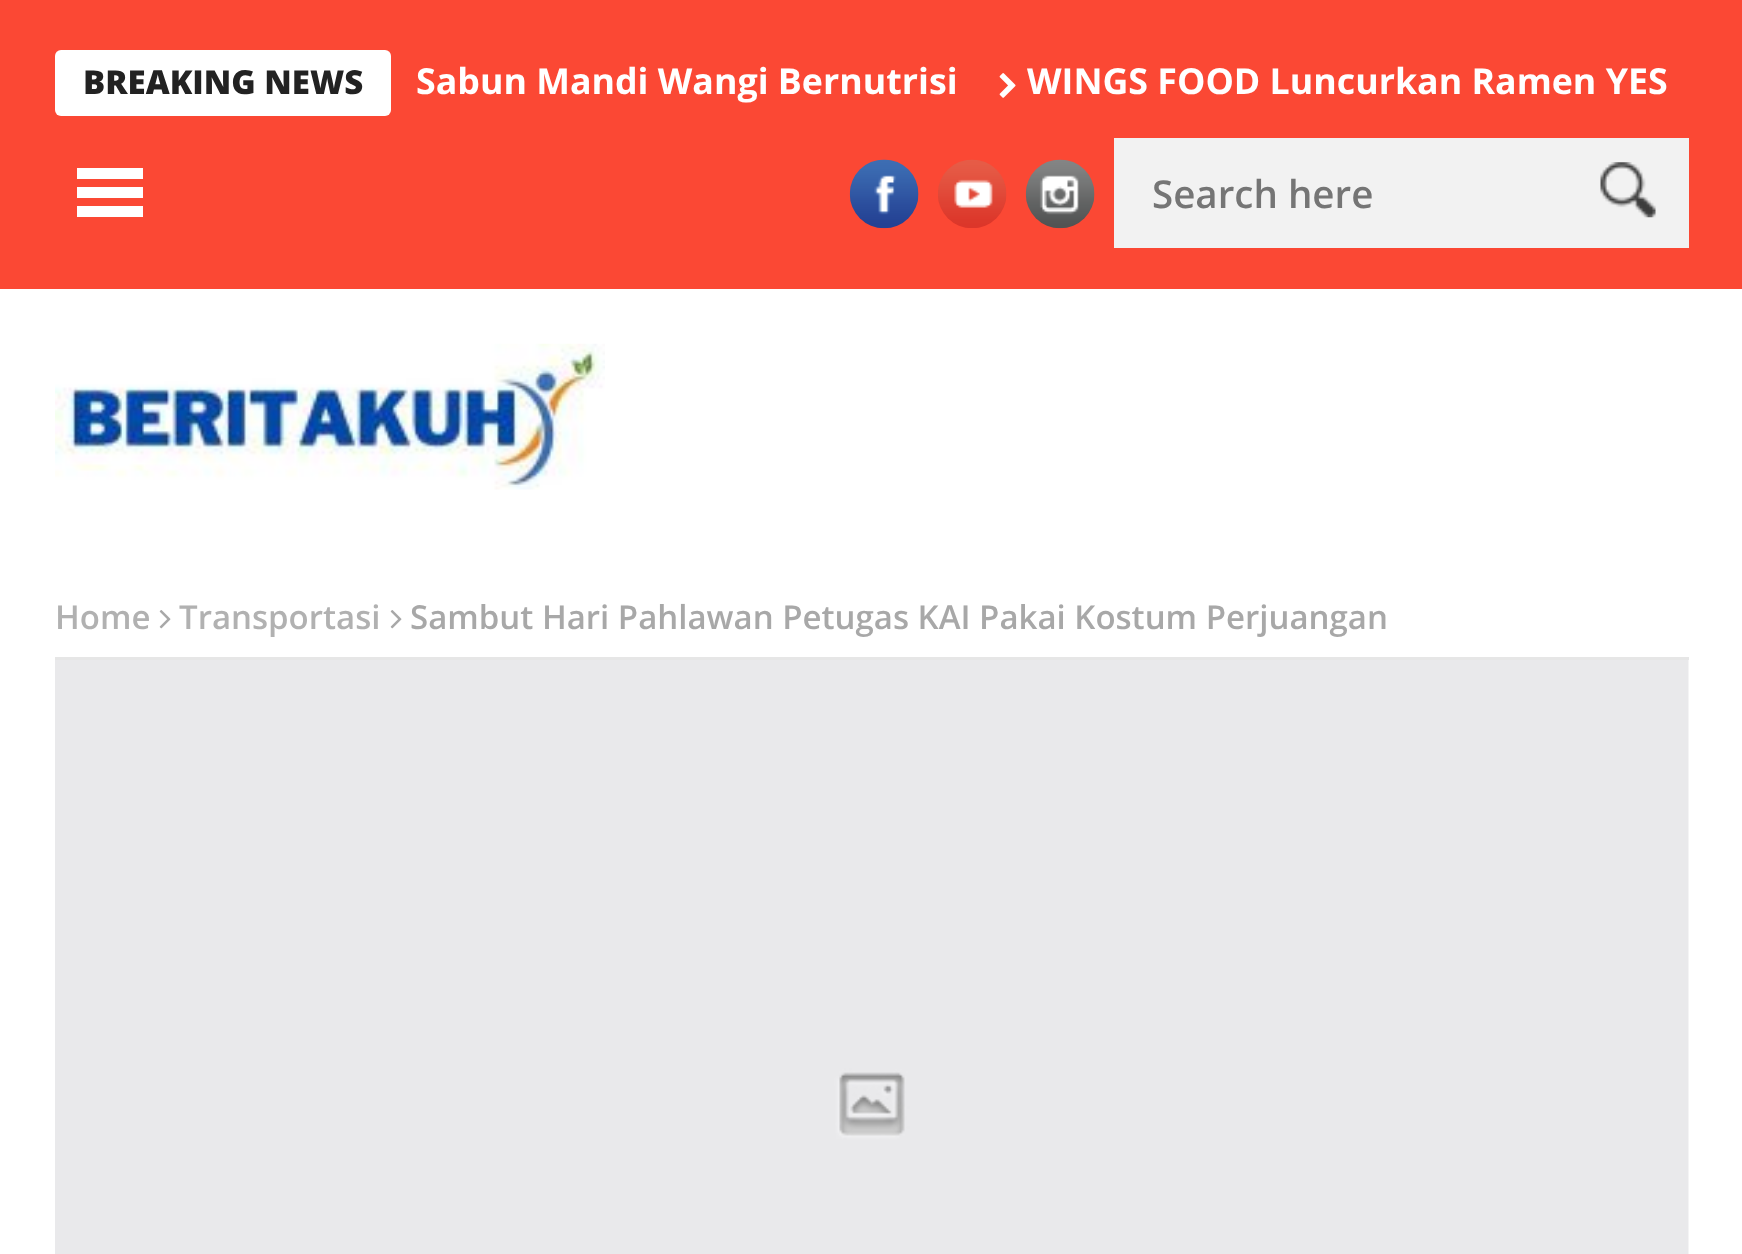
async function draw(canvas) {
	canvas.width = 1742;
	canvas.height = 1254;
	const c = canvas.getContext('2d');
	c.miterLimit = 4;
	c.fontKerning = 'normal';
	async function loadImage(src) {
		const img = new Image();
		img.src = src;
		await img.decode();
		return img;
	}

	c.fillStyle = '#fff';
	c.fillRect(0, 0, 1742, 1254);
	c.fillStyle = '#fb4834';
	c.fillRect(0, 0, 1742, 289);
	c.fillStyle = '#fff';
	c.beginPath();
	c.roundRect(55, 50, 336, 66, 6);
	c.fill();
	c.font = '800 33px Open Sans';
	c.fillStyle = '#222';
	c.fillText('BREAKING NEWS', 83, 94);
	c.font = 'bold 35.75px Open Sans';
	c.fillStyle = '#fff';
	c.fillText('Sabun Mandi Wangi Bernutrisi', 416, 94);
	c.drawImage(await loadImage('img1.png'), 999, 73, 17, 25);
	c.fillText('WINGS FOOD Luncurkan Ramen YES', 1027, 94);
	for (const [x, y, w, h, color] of [
		[77, 168, 66, 11, '#fff'],
		[77, 187, 66, 11, '#fff'],
		[77, 206, 66, 11, '#fff'],
	]) {
		c.fillStyle = color;
		c.fillRect(x, y, w, h);
	}
	c.drawImage(await loadImage('img2.png'), 849, 159, 70, 70);
	c.drawImage(await loadImage('img3.png'), 938, 159, 69, 69);
	c.drawImage(await loadImage('img4.png'), 1025, 159, 70, 70);
	c.fillStyle = '#f2f2f2';
	c.fillRect(1114, 138, 575, 110);
	c.font = '600 38.5px Open Sans';
	c.fillStyle = '#757575';
	c.fillText('Search here', 1152, 208);
	c.drawImage(await loadImage('img5.png'), 1600, 162, 56, 56);
	c.drawImage(await loadImage('img6.png'), 55, 343, 550, 147);
	c.fillStyle = '#e6e6e6';
	c.fillRect(55, 657, 1634, 3);
	c.font = '600 33px Open Sans';
	c.fillStyle = '#b1b1b1';
	c.fillText('Home', 55, 629);
	c.drawImage(await loadImage('img7.png'), 159, 610, 12, 19);
	c.fillText('Transportasi', 179, 629);
	c.drawImage(await loadImage('img7.png'), 390, 610, 12, 19);
	c.fillStyle = '#a8a8a8';
	c.fillText('Sambut Hari Pahlawan Petugas KAI Pakai Kostum Perjuangan', 410, 629);
	c.drawImage(await loadImage('img8.png'), 55, 660, 1634, 594);
}

draw(document.querySelector('canvas'));
